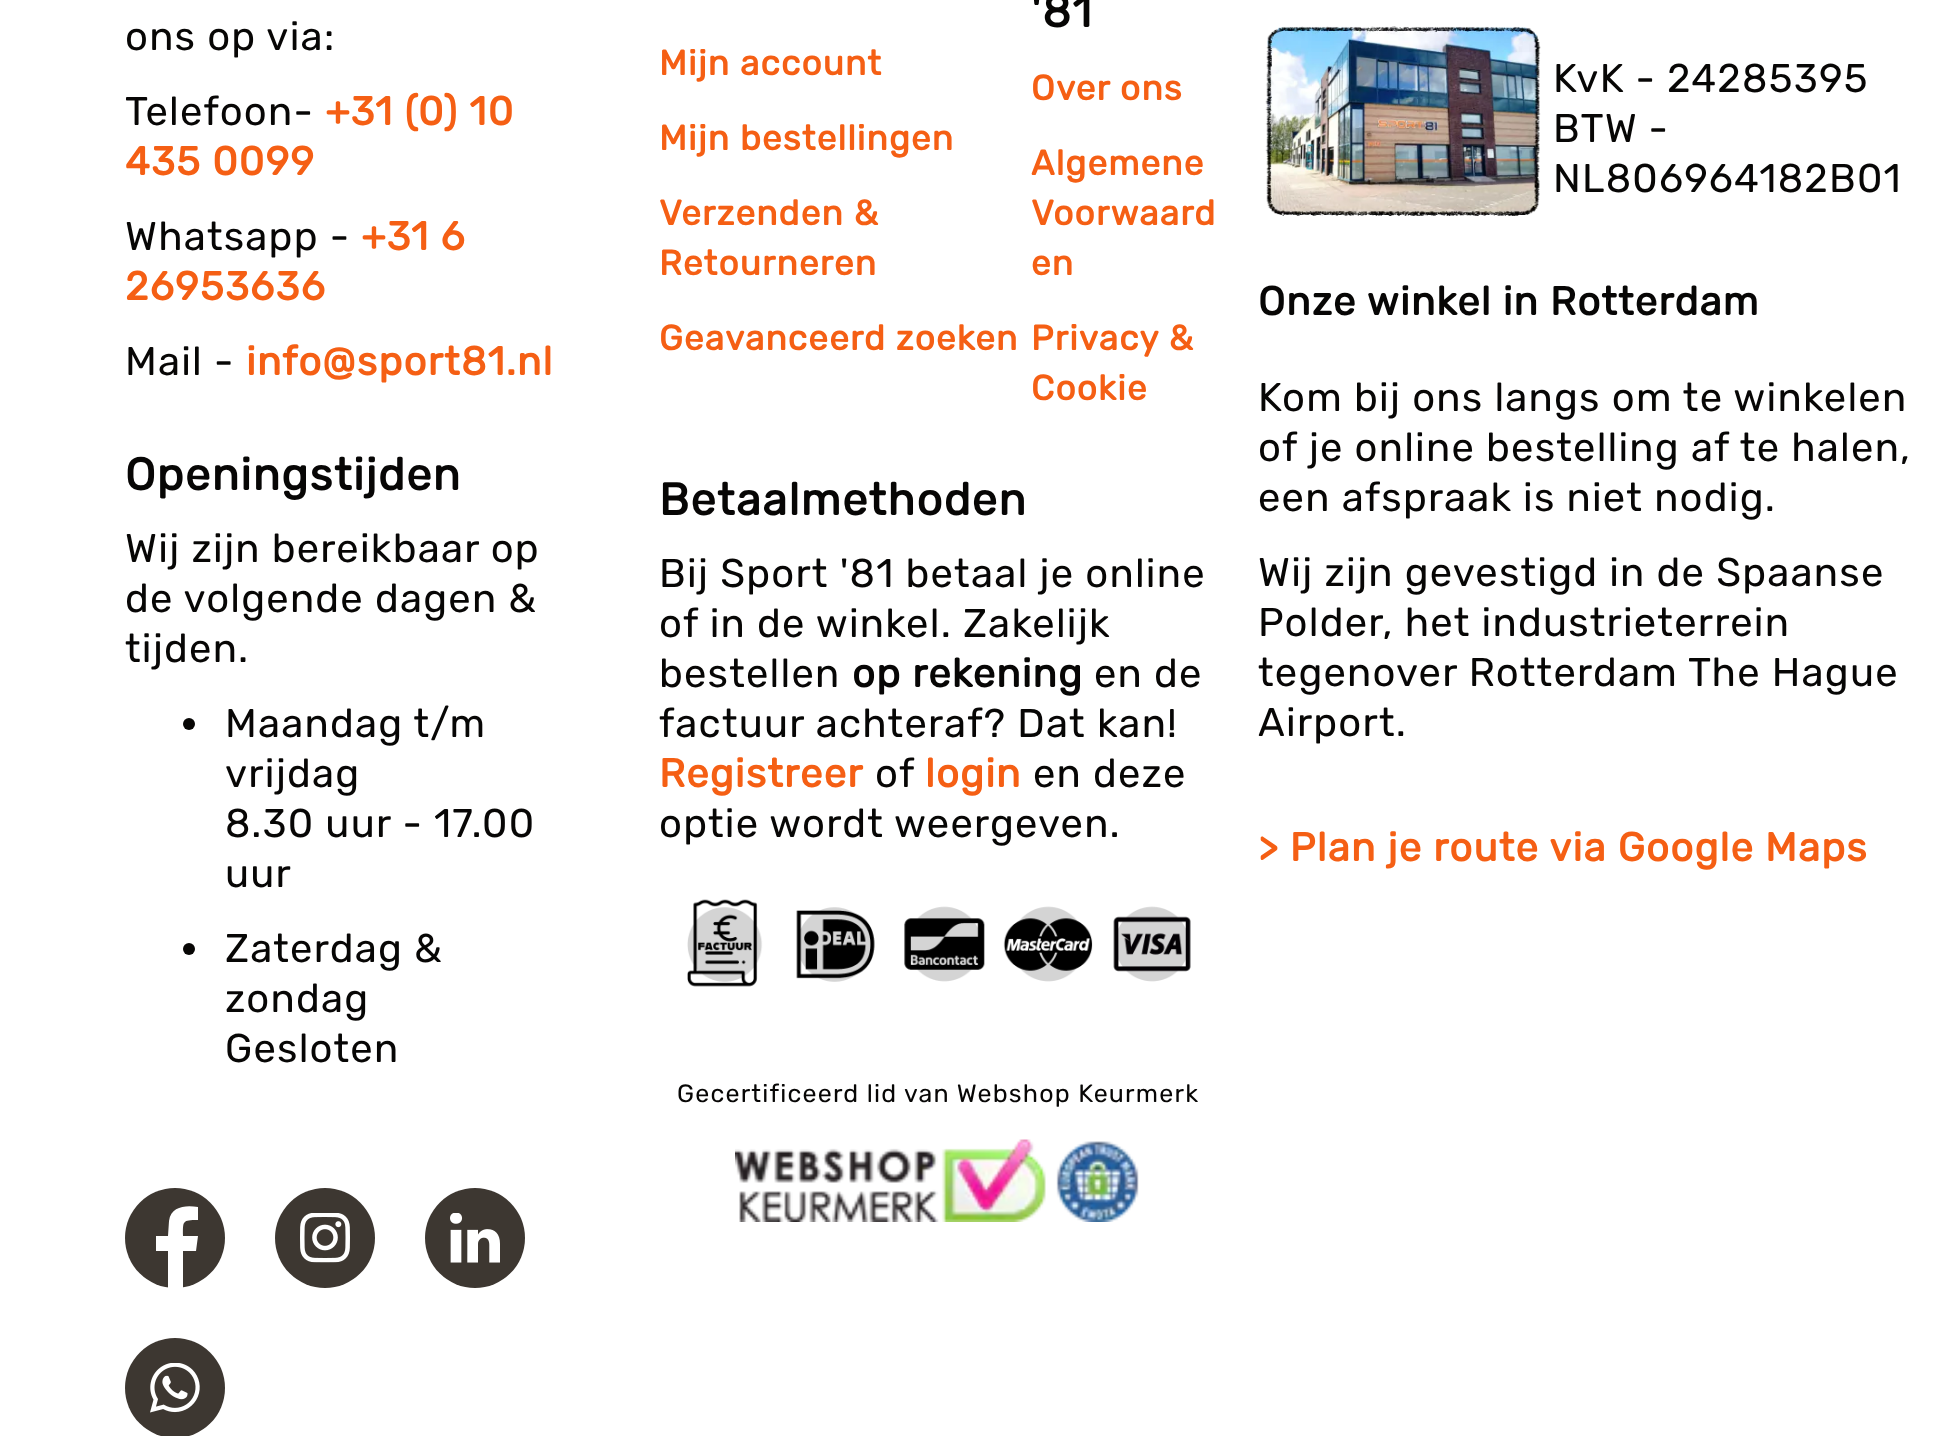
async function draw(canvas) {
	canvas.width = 1938;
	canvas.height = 1436;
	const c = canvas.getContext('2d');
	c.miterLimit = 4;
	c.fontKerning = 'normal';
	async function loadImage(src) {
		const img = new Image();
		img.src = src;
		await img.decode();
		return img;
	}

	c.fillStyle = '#fff';
	c.fillRect(0, 0, 1938, 1436);
	c.letterSpacing = '1.2px';
	c.font = '300 40px Rubik';
	c.fillStyle = '#070605';
	c.fillText('ons op via:', 125, 50);
	c.fillText('Telefoon-', 125, 125);
	c.font = 'bold 40px Rubik';
	c.fillStyle = '#f55f14';
	c.fillText('+31 (0) 10', 325, 125);
	c.fillText('435 0099', 125, 175);
	c.font = '300 40px Rubik';
	c.fillStyle = '#070605';
	c.fillText('Whatsapp -', 125, 250);
	c.font = 'bold 40px Rubik';
	c.fillStyle = '#f55f14';
	c.fillText('+31 6', 361, 250);
	c.fillText('26953636', 125, 300);
	c.font = '300 40px Rubik';
	c.fillStyle = '#070605';
	c.fillText('Mail -', 125, 375);
	c.font = 'bold 40px Rubik';
	c.fillStyle = '#f55f14';
	c.fillText('info@sport81.nl', 246, 375);
	c.letterSpacing = '1.4px';
	c.font = 'bold 45px Rubik';
	c.fillStyle = '#070605';
	c.fillText('Openingstijden', 125, 490);
	c.letterSpacing = '1.2px';
	c.font = '300 40px Rubik';
	for (const [text, x, y] of [
		['Wij zijn bereikbaar op', 125, 562],
		['de volgende dagen &', 125, 612],
		['tijden.', 125, 662],
	]) {
		c.fillText(text, x, y);
	}
	c.beginPath();
	c.arc(189, 724, 6, 0, 2 * Math.PI);
	c.fill();
	for (const [text, x, y] of [
		['Maandag t/m', 225, 737],
		['vrijdag', 225, 787],
		['8.30 uur - 17.00', 225, 837],
		['uur', 225, 887],
	]) {
		c.fillText(text, x, y);
	}
	c.beginPath();
	c.arc(189, 949, 6, 0, 2 * Math.PI);
	c.fill();
	for (const [text, x, y] of [
		['Zaterdag &', 225, 962],
		['zondag', 225, 1012],
		['Gesloten', 225, 1062],
	]) {
		c.fillText(text, x, y);
	}
	c.fillStyle = '#3d3731';
	c.beginPath();
	c.arc(175, 1238, 50, 0, 2 * Math.PI);
	c.fill();
	c.fillStyle = '#fff';
	c.beginPath();
	c.moveTo(183, 1288);
	c.lineTo(183, 1251);
	c.lineTo(196, 1251);
	c.lineTo(198, 1236);
	c.lineTo(183, 1236);
	c.bezierCurveTo(183, 1221, 182, 1220, 198, 1220);
	c.lineTo(198, 1207);
	c.bezierCurveTo(186, 1205, 171, 1206, 169, 1221);
	c.lineTo(168, 1236);
	c.lineTo(156, 1236);
	c.lineTo(156, 1251);
	c.lineTo(168, 1251);
	c.lineTo(168, 1288);
	c.closePath();
	c.fill();
	c.fillStyle = '#3d3731';
	c.beginPath();
	c.arc(325, 1238, 50, 0, 2 * Math.PI);
	c.fill();
	c.drawImage(await loadImage('img1.png'), 300, 1213, 50, 50);
	c.beginPath();
	c.arc(475, 1238, 50, 0, 2 * Math.PI);
	c.fill();
	c.drawImage(await loadImage('img2.png'), 450, 1213, 50, 50);
	c.beginPath();
	c.arc(175, 1388, 50, 0, 2 * Math.PI);
	c.fill();
	c.drawImage(await loadImage('img3.png'), 150, 1363, 50, 50);
	c.font = 'bold 35px Rubik';
	c.fillStyle = '#f55f14';
	for (const [text, x, y] of [
		['Mijn account', 659, 75],
		['Mijn bestellingen', 659, 150],
		['Verzenden &', 659, 225],
		['Retourneren', 659, 275],
		['Geavanceerd zoeken', 659, 350],
	]) {
		c.fillText(text, x, y);
	}
	c.letterSpacing = '1.4px';
	c.font = 'bold 45px Rubik';
	c.fillStyle = '#070605';
	c.fillText('\'81', 1031, 27);
	c.letterSpacing = '1.2px';
	c.font = 'bold 35px Rubik';
	c.fillStyle = '#f55f14';
	for (const [text, x, y] of [
		['Over ons', 1031, 100],
		['Algemene', 1031, 175],
		['Voorwaard', 1031, 225],
		['en', 1031, 275],
		['Privacy &', 1031, 350],
		['Cookie', 1031, 400],
	]) {
		c.fillText(text, x, y);
	}
	c.letterSpacing = '1.4px';
	c.font = 'bold 45px Rubik';
	c.fillStyle = '#070605';
	c.fillText('Betaalmethoden', 659, 515);
	c.letterSpacing = '1.2px';
	c.font = '300 40px Rubik';
	for (const [text, x, y] of [
		['Bij Sport \'81 betaal je online', 659, 587],
		['of in de winkel. Zakelijk', 659, 637],
		['bestellen', 659, 687],
	]) {
		c.fillText(text, x, y);
	}
	c.font = 'bold 40px Rubik';
	c.fillText('op rekening', 852, 687);
	c.font = '300 40px Rubik';
	c.fillText('en de', 1094, 687);
	c.fillText('factuur achteraf? Dat kan!', 659, 737);
	c.font = 'bold 40px Rubik';
	c.fillStyle = '#f55f14';
	c.fillText('Registreer', 659, 787);
	c.font = '300 40px Rubik';
	c.fillStyle = '#070605';
	c.fillText('of', 875, 787);
	c.font = 'bold 40px Rubik';
	c.fillStyle = '#f55f14';
	c.fillText('login', 925, 787);
	c.font = '300 40px Rubik';
	c.fillStyle = '#070605';
	c.fillText('en deze', 1033, 787);
	c.fillText('optie wordt weergeven.', 659, 837);
	c.drawImage(await loadImage('img4.png'), 687, 899, 504, 88);
	c.font = '300 25px Rubik';
	c.fillText('Gecertificeerd lid van Webshop Keurmerk', 677, 1102);
	c.drawImage(await loadImage('img5.png'), 735, 1139, 404, 83);
	c.drawImage(await loadImage('img6.png'), 1265, 26, 276, 190);
	c.font = '300 40px Rubik';
	for (const [text, x, y] of [
		['KvK - 24285395', 1553, 92],
		['BTW -', 1553, 142],
		['NL806964182B01', 1553, 192],
	]) {
		c.fillText(text, x, y);
	}
	c.font = 'bold 40px Rubik';
	c.fillText('Onze winkel in Rotterdam', 1258, 315);
	c.font = '300 40px Rubik';
	for (const [text, x, y] of [
		['Kom bij ons langs om te winkelen', 1258, 411],
		['of je online bestelling af te halen,', 1258, 461],
		['een afspraak is niet nodig.', 1258, 511],
		['Wij zijn gevestigd in de Spaanse', 1258, 586],
		['Polder, het industrieterrein', 1258, 636],
		['tegenover Rotterdam The Hague', 1258, 686],
		['Airport.', 1258, 736],
	]) {
		c.fillText(text, x, y);
	}
	c.font = 'bold 40px Rubik';
	c.fillStyle = '#f55f14';
	c.fillText('> Plan je route via Google Maps', 1258, 861);
}

draw(document.querySelector('canvas'));
